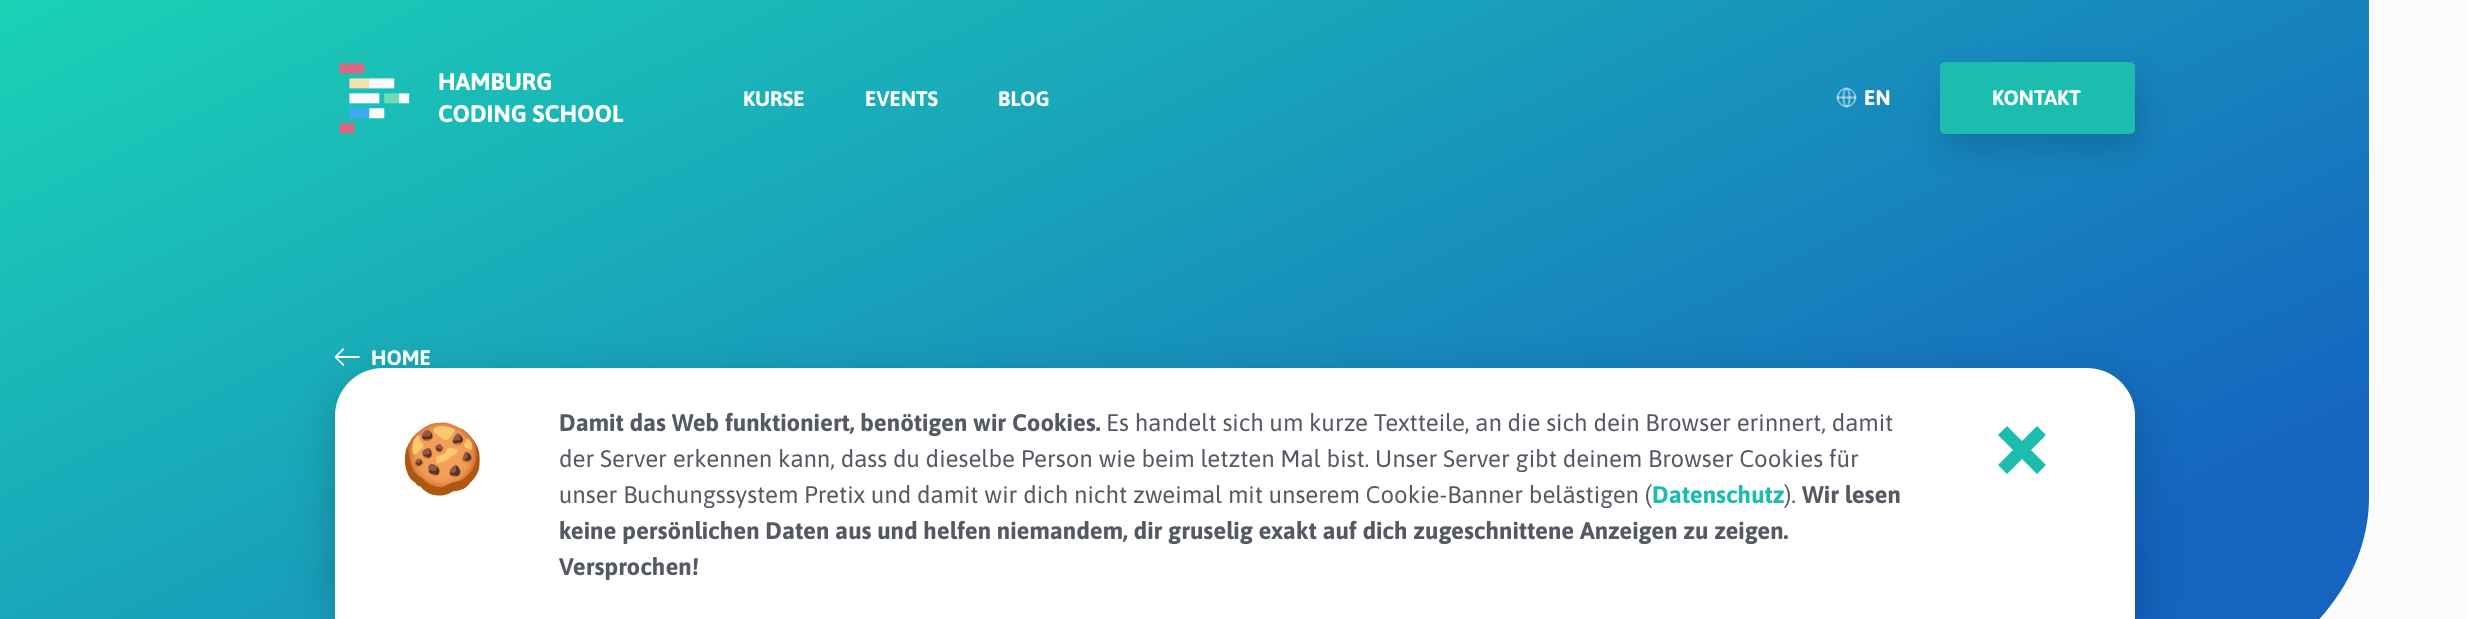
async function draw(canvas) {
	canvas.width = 2467;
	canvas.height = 619;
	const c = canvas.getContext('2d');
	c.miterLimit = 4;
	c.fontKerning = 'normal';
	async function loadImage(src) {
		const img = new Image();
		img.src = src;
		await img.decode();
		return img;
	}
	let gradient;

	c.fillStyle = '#fcfcfc';
	c.fillRect(0, 0, 2467, 619);
	gradient = c.createLinearGradient(1582, 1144, 786, -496);
	gradient.addColorStop(0.17, '#1565c0');
	gradient.addColorStop(1, '#1cdab5');
	c.fillStyle = gradient;
	c.beginPath();
	c.moveTo(0, 0);
	c.lineTo(2369, -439);
	c.lineTo(2369, 498);
	c.bezierCurveTo(2369, 581, 2302, 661, 2219, 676);
	c.lineTo(0, 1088);
	c.closePath();
	c.fill();
	c.drawImage(await loadImage('img1.png'), 339, 63, 71, 71);
	c.font = 'bold 24px Asap';
	c.fillStyle = '#fff';
	c.fillText('HAMBURG', 438, 90);
	c.fillText('CODING SCHOOL', 438, 122);
	c.font = 'bold 21px Asap';
	for (const [text, x, y] of [
		['KURSE', 743, 106],
		['EVENTS', 865, 106],
		['BLOG', 998, 106],
	]) {
		c.fillText(text, x, y);
	}
	c.drawImage(await loadImage('img2.png'), 1836, 87, 21, 21);
	c.fillText('EN', 1864, 105);
	c.fillStyle = '#00000026';
	c.filter = 'blur(15px)';
	c.beginPath();
	c.roundRect(1944, 77, 195, 72, 5);
	c.fill();
	c.filter = 'none';
	c.fillStyle = '#1cbdaf';
	c.beginPath();
	c.roundRect(1940, 62, 195, 72, 5);
	c.fill();
	c.fillStyle = '#fff';
	c.fillText('KONTAKT', 1992, 105);
	c.drawImage(await loadImage('img3.png'), 334, 348, 26, 18);
	c.fillText('HOME', 371, 365);
	c.fillStyle = '#00000033';
	c.filter = 'blur(22.5px)';
	c.beginPath();
	c.roundRect(335, 383, 1800, 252, 48);
	c.fill();
	c.filter = 'none';
	c.fillStyle = '#0000001a';
	c.filter = 'blur(22.5px)';
	c.beginPath();
	c.roundRect(624, 575, 1511, 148, 36);
	c.fill();
	c.filter = 'none';
	c.fillStyle = '#fff';
	c.beginPath();
	c.moveTo(383, 368);
	c.lineTo(2087, 368);
	c.bezierCurveTo(2113.5, 368, 2135, 389.5, 2135, 416);
	c.lineTo(2135, 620);
	c.lineTo(335, 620);
	c.lineTo(335, 416);
	c.bezierCurveTo(335, 389.5, 356.5, 368, 383, 368);
	c.closePath();
	c.fill();
	c.font = '68px Noto Color Emoji';
	c.fillStyle = '#181a1c';
	c.fillText('🍪', 400, 482);
	c.font = 'bold 24px Asap';
	c.fillStyle = '#555963';
	c.fillText('Damit das Web funktioniert, benötigen wir Cookies.', 559, 431);
	c.font = '24px Asap';
	for (const [text, x, y] of [
		['Es handelt sich um kurze Textteile, an die sich dein Browser erinnert, damit', 1106, 431],
		['der Server erkennen kann, dass du dieselbe Person wie beim letzten Mal bist. Unser Server gibt deinem Browser Cookies für', 559, 467],
		['unser Buchungssystem Pretix und damit wir dich nicht zweimal mit unserem Cookie-Banner belästigen (', 559, 503],
	]) {
		c.fillText(text, x, y);
	}
	c.font = 'bold 24px Asap';
	c.fillStyle = '#1cbdaf';
	c.fillText('Datenschutz', 1652, 503);
	c.font = '24px Asap';
	c.fillStyle = '#555963';
	c.fillText(').', 1784, 503);
	c.font = 'bold 24px Asap';
	for (const [text, x, y] of [
		['Wir lesen', 1802, 503],
		['keine persönlichen Daten aus und helfen niemandem, dir gruselig exakt auf dich zugeschnittene Anzeigen zu zeigen.', 559, 539],
		['Versprochen!', 559, 575],
	]) {
		c.fillText(text, x, y);
	}
	c.fillStyle = '#1cbdaf';
	c.beginPath();
	c.moveTo(2046, 435);
	c.lineTo(2037, 426);
	c.lineTo(2022, 441);
	c.lineTo(2007, 426);
	c.lineTo(1998, 435);
	c.lineTo(2013, 450);
	c.lineTo(1998, 465);
	c.lineTo(2007, 474);
	c.lineTo(2022, 459);
	c.lineTo(2037, 474);
	c.lineTo(2046, 465);
	c.lineTo(2031, 450);
	c.closePath();
	c.fill();
}

draw(document.querySelector('canvas'));
